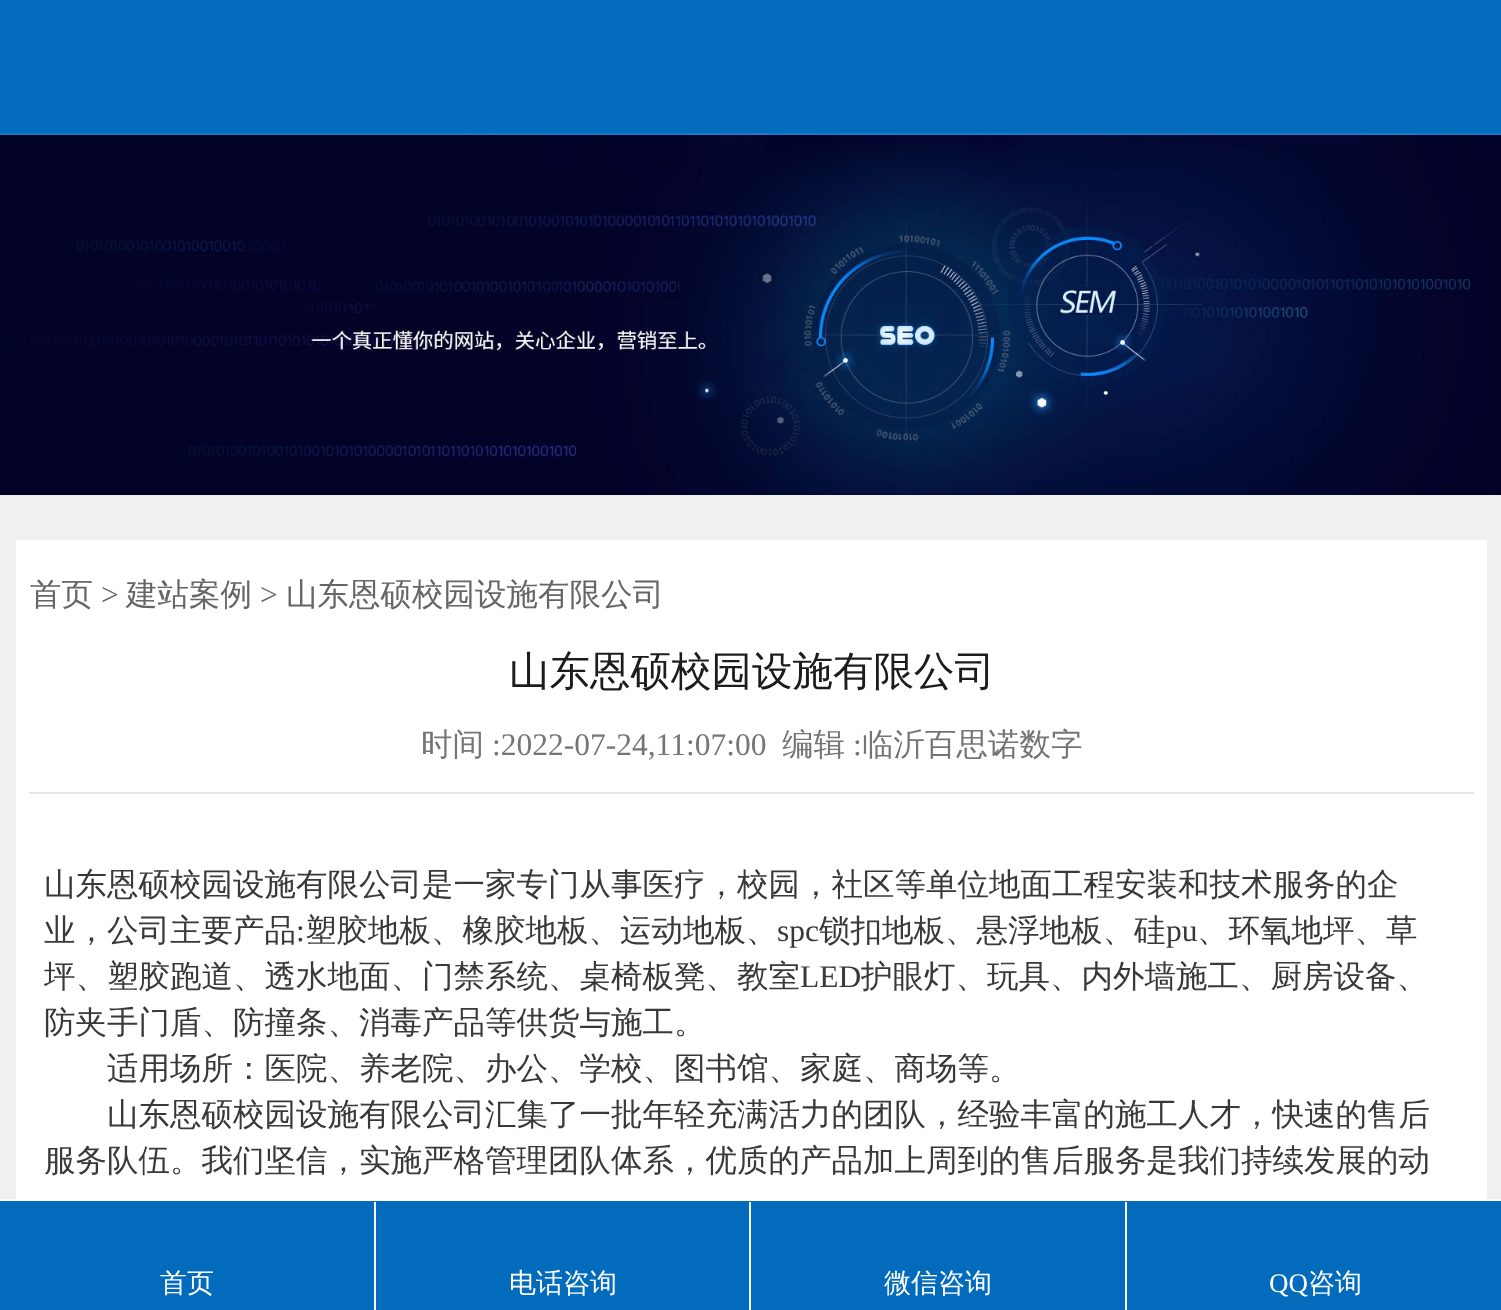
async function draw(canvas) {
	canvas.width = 1501;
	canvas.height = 1310;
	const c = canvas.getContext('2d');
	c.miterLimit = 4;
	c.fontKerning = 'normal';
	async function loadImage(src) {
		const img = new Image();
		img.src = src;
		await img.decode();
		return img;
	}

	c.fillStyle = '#f0f0f0';
	c.fillRect(0, 0, 1501, 1310);
	c.fillStyle = '#026bbc';
	c.fillRect(0, 0, 1501, 133);
	c.fillStyle = '#1b7ac3';
	c.fillRect(0, 133, 1501, 2);
	c.drawImage(await loadImage('img1.png'), 0, 135, 1501, 360);
	c.fillStyle = '#fff';
	c.fillRect(16, 540, 1471, 659);
	c.font = '500 31.5px WenQuanYi Zen Hei';
	c.fillStyle = '#666';
	c.fillText('首页', 30, 605);
	c.font = '31.5px Liberation Serif';
	c.fillText('>', 101, 605);
	c.font = '500 31.5px WenQuanYi Zen Hei';
	c.fillText('建站案例', 126, 605);
	c.font = '31.5px Liberation Serif';
	c.fillText('>', 260, 605);
	c.font = '500 31.5px WenQuanYi Zen Hei';
	c.fillText('山东恩硕校园设施有限公司', 286, 605);
	c.font = '500 40.5px WenQuanYi Zen Hei';
	c.fillStyle = '#1c1c1c';
	c.fillText('山东恩硕校园设施有限公司', 509, 685);
	c.fillStyle = '#e6e6e6';
	c.fillRect(29, 792, 1445, 2);
	c.font = '500 31.5px WenQuanYi Zen Hei';
	c.fillStyle = '#757575';
	c.fillText('时间', 421, 755);
	c.font = '31.5px Liberation Serif';
	c.fillText(':2022-07-24,11:07:00', 492, 755);
	c.font = '500 31.5px WenQuanYi Zen Hei';
	c.fillText('编辑', 782, 755);
	c.font = '31.5px Liberation Serif';
	c.fillText(':', 853, 755);
	c.font = '500 31.5px WenQuanYi Zen Hei';
	c.fillText('临沂百思诺数字', 862, 755);
	c.fillStyle = '#393939';
	c.fillText('山东恩硕校园设施有限公司是一家专门从事医疗，校园，社区等单位地面工程安装和技术服务的企', 44, 895);
	c.fillText('业，公司主要产品', 44, 941);
	c.font = '31.5px Liberation Serif';
	c.fillText(':', 296, 941);
	c.font = '500 31.5px WenQuanYi Zen Hei';
	c.fillText('塑胶地板、橡胶地板、运动地板、', 305, 941);
	c.font = '31.5px Liberation Serif';
	c.fillText('spc', 777, 941);
	c.font = '500 31.5px WenQuanYi Zen Hei';
	c.fillText('锁扣地板、悬浮地板、硅', 819, 941);
	c.font = '31.5px Liberation Serif';
	c.fillText('pu', 1166, 941);
	c.font = '500 31.5px WenQuanYi Zen Hei';
	c.fillText('、环氧地坪、草', 1197, 941);
	c.fillText('坪、塑胶跑道、透水地面、门禁系统、桌椅板凳、教室', 44, 987);
	c.font = '31.5px Liberation Serif';
	c.fillText('LED', 800, 987);
	c.font = '500 31.5px WenQuanYi Zen Hei';
	for (const [text, x, y] of [
		['护眼灯、玩具、内外墙施工、厨房设备、', 861, 987],
		['防夹手门盾、防撞条、消毒产品等供货与施工。', 44, 1033],
		['适用场所：医院、养老院、办公、学校、图书馆、家庭、商场等。', 107, 1079],
		['山东恩硕校园设施有限公司汇集了一批年轻充满活力的团队，经验丰富的施工人才，快速的售后', 107, 1125],
		['服务队伍。我们坚信，实施严格管理团队体系，优质的产品加上周到的售后服务是我们持续发展的动', 44, 1171],
	]) {
		c.fillText(text, x, y);
	}
	for (const [x, y, w, h, color] of [
		[0, 1201, 1501, 109, '#026bbc'],
		[0, 1199, 1501, 2, '#fff'],
		[374, 1202, 2, 108, '#fff'],
	]) {
		c.fillStyle = color;
		c.fillRect(x, y, w, h);
	}
	c.font = '500 27px WenQuanYi Zen Hei';
	c.fillText('首页', 160, 1292);
	c.fillRect(749, 1202, 2, 108);
	c.fillText('电话咨询', 509, 1292);
	c.fillRect(1125, 1202, 2, 108);
	c.fillText('微信咨询', 884, 1292);
	c.font = '27px Liberation Serif';
	c.fillText('QQ', 1269, 1292);
	c.font = '500 27px WenQuanYi Zen Hei';
	c.fillText('咨询', 1308, 1292);
}

draw(document.querySelector('canvas'));
